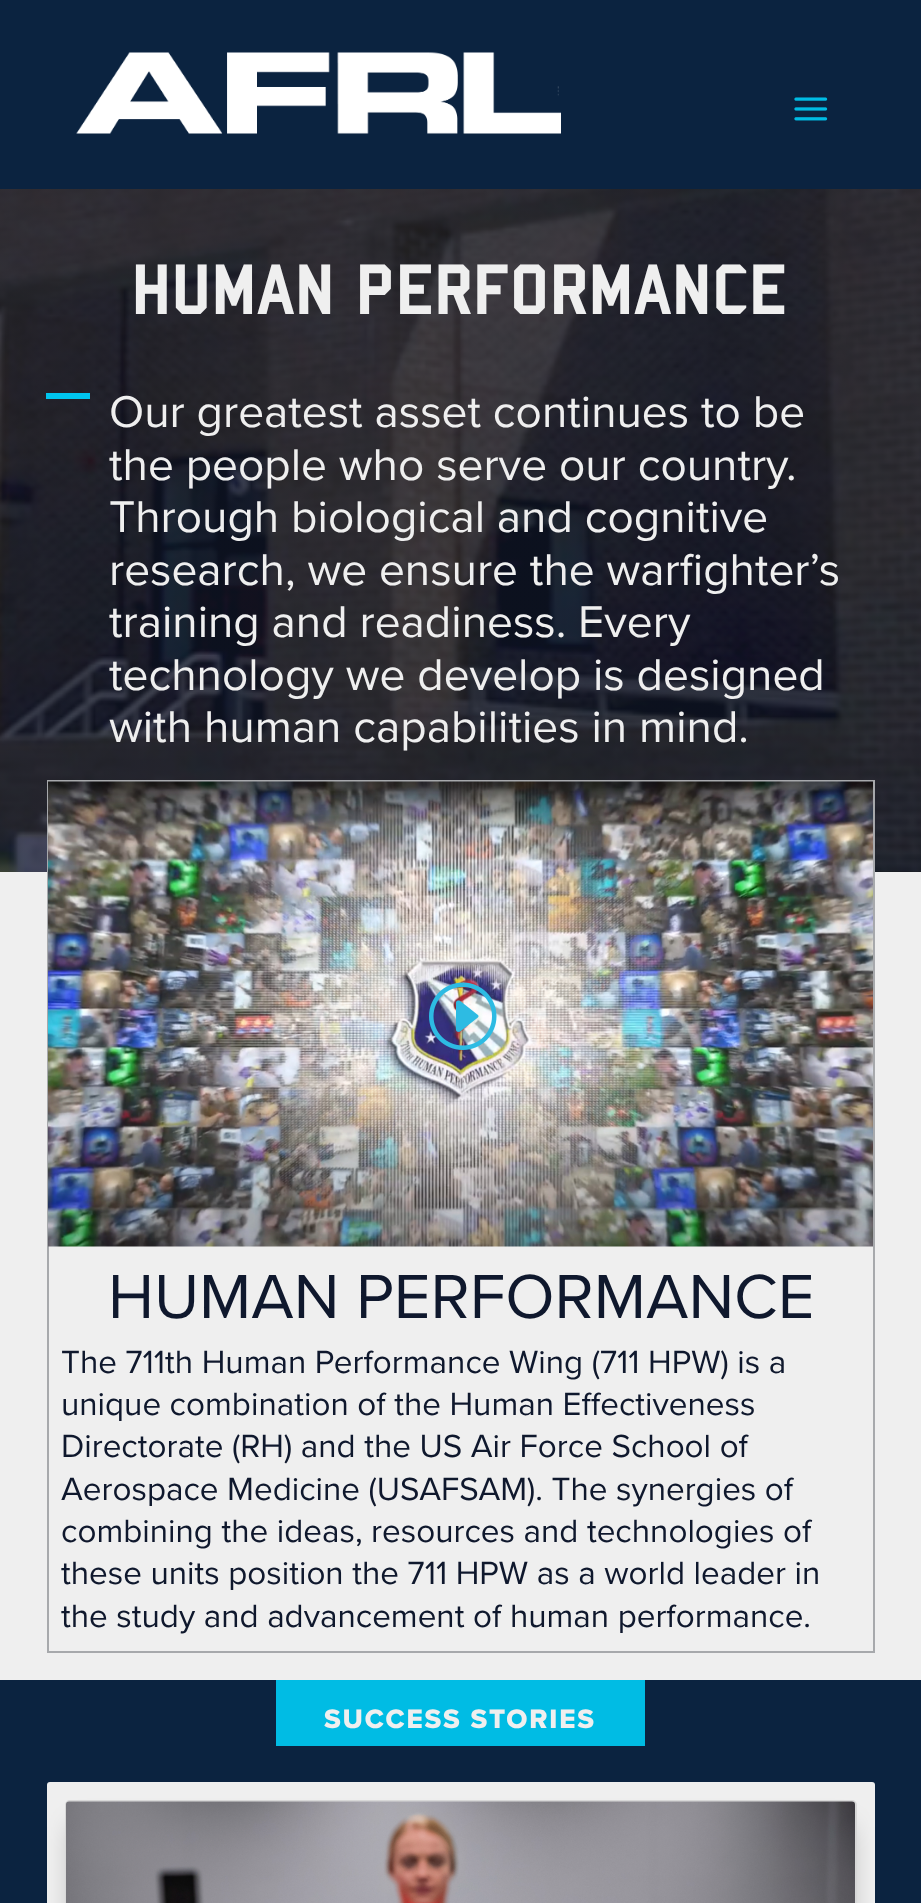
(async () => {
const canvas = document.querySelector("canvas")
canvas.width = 921
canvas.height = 1903
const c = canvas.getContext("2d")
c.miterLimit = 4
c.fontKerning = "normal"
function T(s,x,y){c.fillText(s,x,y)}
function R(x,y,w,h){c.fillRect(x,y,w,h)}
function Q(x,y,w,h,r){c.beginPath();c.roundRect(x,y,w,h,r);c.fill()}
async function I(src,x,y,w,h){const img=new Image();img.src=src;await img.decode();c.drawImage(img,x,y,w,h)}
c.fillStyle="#efefef"
R(0,0,921,1903)
c.fillStyle="#0b2340"
R(0,0,921,189)
await I("1.png",76,52,485,82)
await I("2.png",794,97,34,24)
c.fillStyle="#0b101e"
R(0,871,921,1)
await I("3.png",0,189,921,683)
c.letterSpacing="1.5px"
c.font="77.25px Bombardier"
c.fillStyle="#efefef"
T("HUMAN PERFORMANCE",132,314)
c.fillStyle="#00c5ee"
R(46,393,44,6)
c.letterSpacing="0px"
c.font="46px Proxima Nova"
c.fillStyle="#efefef"
T("Our greatest asset continues to be",109,427)
T("the people who serve our country.",109,480)
T("Through biological and cognitive",109,532)
T("research, we ensure the warfighter’s",109,585)
T("training and readiness. Every",109,637)
T("technology we develop is designed",109,690)
T("with human capabilities in mind.",109,742)
c.strokeStyle="#a7a9ac"
c.lineWidth=2
c.strokeRect(48,781,826,871)
await I("4.png",48,781,825,466)
await I("5.png",429,982,68,68)
c.font="64.5px Proxima Nova"
c.fillStyle="#0f182d"
T("HUMAN PERFORMANCE",108,1318)
c.font="33.2px Proxima Nova"
T("The 711th Human Performance Wing (711 HPW) is a",61,1373)
T("unique combination of the Human Effectiveness",61,1415)
T("Directorate (RH) and the US Air Force School of",61,1457)
T("Aerospace Medicine (USAFSAM). The synergies of",61,1500)
T("combining the ideas, resources and technologies of",61,1542)
T("these units position the 711 HPW as a world leader in",61,1584)
T("the study and advancement of human performance.",61,1627)
c.fillStyle="#0b2340"
R(0,1680,921,223)
c.fillStyle="#00bce4"
R(276,1680,369,66)
c.letterSpacing="1.8px"
c.font="800 27.6px Proxima Nova"
c.fillStyle="#efefef"
T("SUCCESS STORIES",324,1728)
Q(47,1782,828,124,3)
c.fillStyle="#0000004d"
c.filter="blur(13.5px)"
c.beginPath()
c.rect(74,1827,774,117)
c.fill()
c.filter="none"
c.beginPath()
c.roundRect(66,1801,790,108,4)
c.strokeStyle="#d8d8d8"
c.stroke()
await I("6.png",66,1801,789,102)
})()
